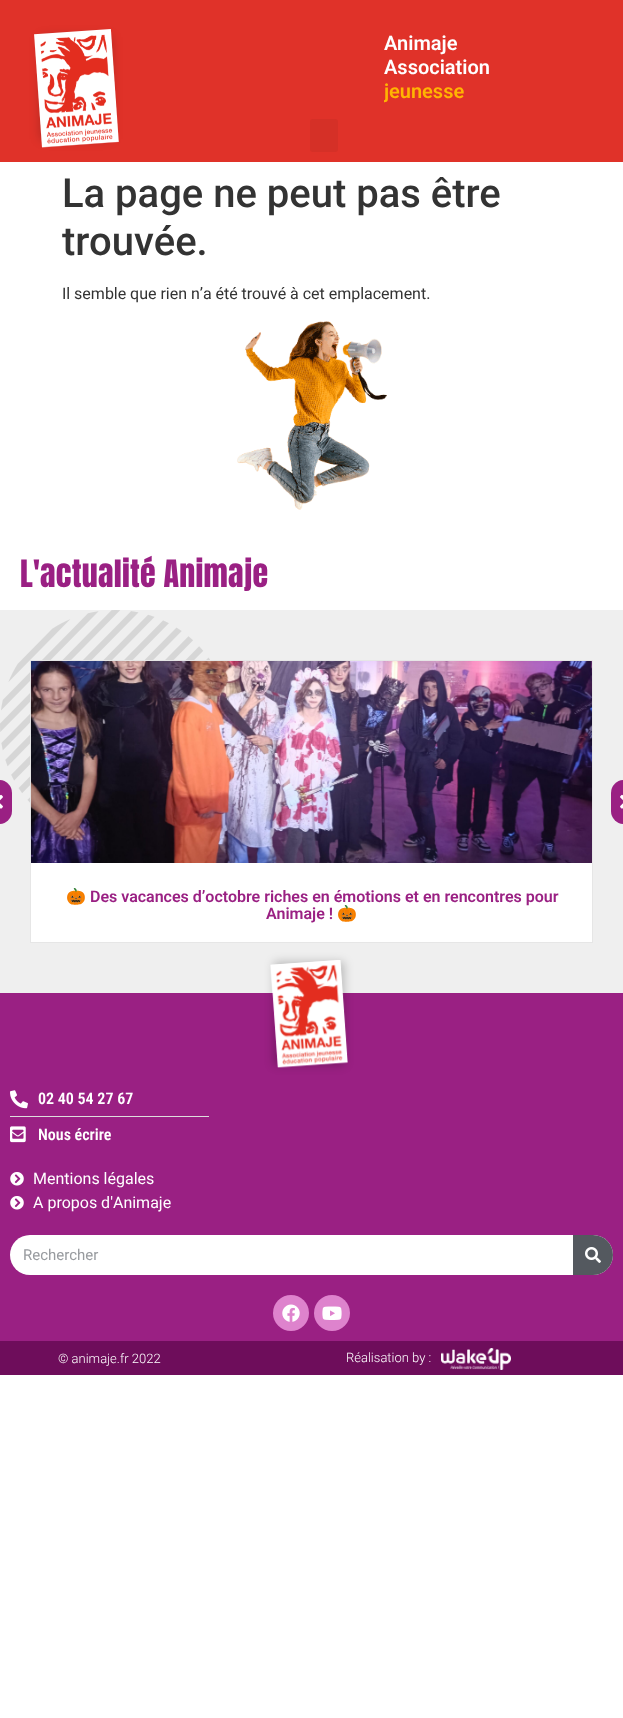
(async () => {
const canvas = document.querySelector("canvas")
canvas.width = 623
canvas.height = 1718
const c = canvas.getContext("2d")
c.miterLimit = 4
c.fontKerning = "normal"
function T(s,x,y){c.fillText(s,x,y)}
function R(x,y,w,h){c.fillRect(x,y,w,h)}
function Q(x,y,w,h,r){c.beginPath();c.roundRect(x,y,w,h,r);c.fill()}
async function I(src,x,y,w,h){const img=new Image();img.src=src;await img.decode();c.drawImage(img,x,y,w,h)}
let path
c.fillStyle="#fff"
R(0,0,623,1718)
c.fillStyle="#e03229"
R(0,0,623,162)
c.fillStyle="#0000003b"
c.filter="blur(5.5px)"
c.beginPath()
c.rect(41,37,70,102)
c.fill()
c.filter="none"
await I("1.png",34,29,85,119)
c.font="600 20px Roboto"
c.fillStyle="#fff"
T("Animaje",384,50)
T("Association",384,74)
c.save()
c.beginPath()
c.rect(384,79,80,24)
c.clip()
c.fillStyle="#ffb402"
T("j",384,98)
c.restore()
c.fillStyle="#ffb402"
T("eunesse",389,98)
c.fillStyle="#d53027"
Q(310,119,28,33,3)
c.font="500 40px Roboto"
c.fillStyle="#333"
T("La page ne peut pas être",62,207)
T("trouvée.",62,255)
c.wordSpacing="-0.1px"
c.font="16px Roboto"
T("Il semble que rien n’a été trouvé à cet emplacement.",62,299)
await I("2.png",237,321,150,189)
c.letterSpacing="0.25px"
c.wordSpacing="0px"
c.font="32px Anton"
c.fillStyle="#9a2083"
T("L'actualité Animaje",20,587)
c.fillStyle="#efefef"
R(0,610,623,383)
await I("3.png",0,610,210,193)
c.fillStyle="#9a2083"
Q(-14,780,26,44,13.5)
await I("4.png",0,794,3,15)
Q(611,780,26,44,13.5)
await I("5.png",620,794,3,15)
c.fillStyle="#fff"
R(31,863,561,79)
c.strokeStyle="#e6e6e6"
c.strokeRect(30.5,660.5,562,282)
await I("6.png",31,661,561,202)
c.letterSpacing="0px"
c.font="bold 16px Noto Color Emoji"
c.fillStyle="#9a2083"
T("🎃",66,902)
c.font="600 16px Roboto"
T("Des vacances d’octobre riches en émotions et en rencontres pour",90,902)
T("Animaje !",266,919)
c.font="bold 16px Noto Color Emoji"
T("🎃",337,919)
R(0,993,623,348)
c.save()
path = new Path2D("M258 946h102v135h-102zm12 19l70-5l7 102.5l-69.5 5z")
c.clip(path,"evenodd")
c.fillStyle="#0000003b"
c.filter="blur(5px)"
c.beginPath()
c.rect(274,962,70,103)
c.fill()
c.filter="none"
c.restore()
await I("7.png",270,960,78,108)
await I("8.png",10,1090,18,19)
c.font="600 16px Roboto Condensed"
c.fillStyle="#fff"
T("02 40 54 27 67",38,1104)
c.fillStyle="#ddd"
R(10,1116,199,1)
await I("9.png",10,1126,16,17)
c.fillStyle="#fff"
T("Nous écrire",38,1140)
await I("10.png",10,1172,14,14)
c.font="16px Roboto"
T("Mentions légales",33,1184)
await I("10.png",10,1196,14,14)
T("A propos d'Animaje",33,1208)
Q(10,1235,603,40,20)
c.font="15px Roboto"
c.fillStyle="#989b9f"
T("Rechercher",23,1260)
c.fillStyle="#54595f"
c.beginPath()
c.roundRect(573,1235,40,40,[0,20,20,0])
c.fill()
await I("11.png",585,1247,16,16)
c.fillStyle="#de83cd"
c.beginPath()
c.arc(291,1313,18,0,7)
c.fill()
await I("12.png",282,1304,18,18)
c.beginPath()
c.arc(332,1313,18,0,7)
c.fill()
await I("13.png",322,1306,20,14)
c.fillStyle="#6e0d5b"
R(0,1341,623,34)
c.font="300 13px Roboto"
c.fillStyle="#fff"
T("© animaje.fr 2022",58,1363)
T("Réalisation by :",346,1362)
await I("14.png",441,1348,70,22)
})()
